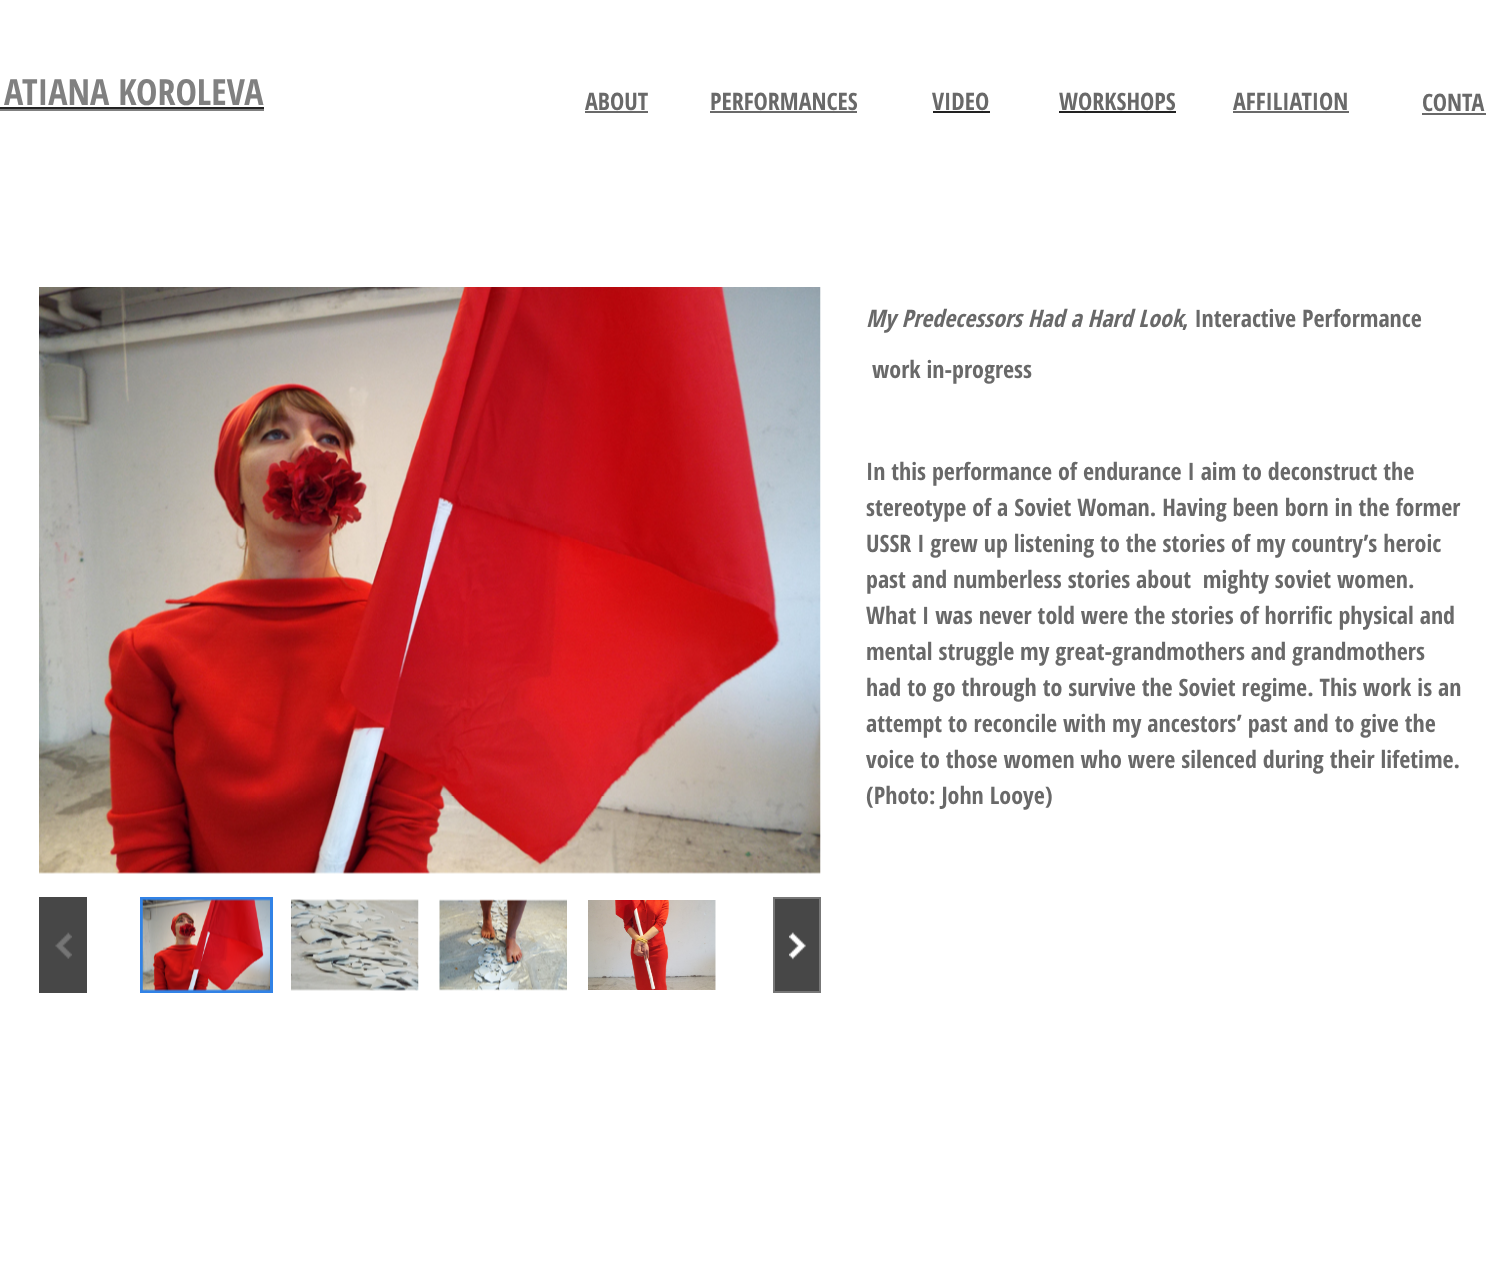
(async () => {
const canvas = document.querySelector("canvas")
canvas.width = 1486
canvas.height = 1279
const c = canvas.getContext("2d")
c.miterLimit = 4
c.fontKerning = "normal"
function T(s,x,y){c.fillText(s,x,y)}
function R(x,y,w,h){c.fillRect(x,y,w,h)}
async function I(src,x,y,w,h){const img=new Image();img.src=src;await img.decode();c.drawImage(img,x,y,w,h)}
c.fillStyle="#fff"
R(0,0,1486,1279)
c.font="bold 36px Open Sans Condensed"
c.fillStyle="#808080"
T("ATIANA KOROLEVA",4,105)
R(0,109,264,2)
c.fillStyle="#222"
R(0,107,264,2)
c.font="bold 24px Open Sans Condensed"
c.fillStyle="#696969"
T("ABOUT",585,110)
R(585,111,63,2)
T("PERFORMANCES",710,110)
R(710,111,147,2)
T("VIDEO",932,110)
c.fillStyle="#222"
R(933,111,57,2)
c.fillStyle="#696969"
T("WORKSHOPS",1059,110)
c.fillStyle="#222"
R(1059,111,117,2)
c.fillStyle="#696969"
T("AFFILIATION",1233,110)
R(1233,111,116,2)
T("CONTA",1422,111)
R(1422,113,64,2)
await I("1.png",39,287,782,587)
c.fillStyle="#474747"
R(39,897,48,96)
await I("2.png",55,932,17,27)
c.fillStyle="#3182e6"
R(140,897,133,96)
await I("3.png",142,899,128,92)
await I("4.png",291,899,128,92)
await I("5.png",439,899,128,92)
await I("6.png",588,900,128,90)
c.fillStyle="#474747"
R(775,899,44,92)
await I("7.png",789,932,17,28)
c.strokeStyle="#777"
c.lineWidth=2
c.strokeRect(774,898,46,94)
c.font="italic bold 24px Open Sans Condensed"
c.fillStyle="#696969"
T("My Predecessors Had a Hard Look",866,327)
c.font="bold 24px Open Sans Condensed"
T(", Interactive Performance",1182,327)
T("work in-progress",872,378)
T("In this performance of endurance I aim to deconstruct the",866,480)
T("stereotype of a Soviet Woman. Having been born in the former",866,516)
T("USSR I grew up listening to the stories of my country’s heroic",866,552)
T("past and numberless stories about  mighty soviet women.",866,588)
T("What I was never told were the stories of horrific physical and",866,624)
T("mental struggle my great-grandmothers and grandmothers",866,660)
T("had to go through to survive the Soviet regime. This work is an",866,696)
T("attempt to reconcile with my ancestors’ past and to give the",866,732)
T("voice to those women who were silenced during their lifetime.",866,768)
T("(Photo: John Looye)",866,804)
})()
